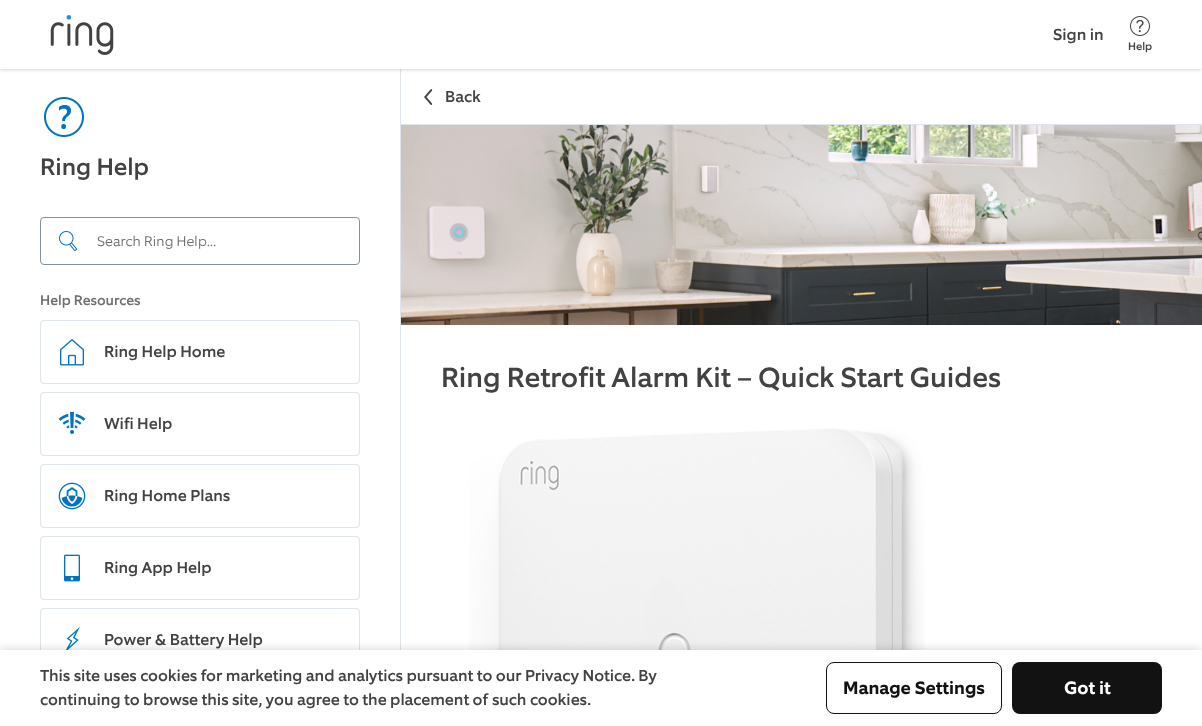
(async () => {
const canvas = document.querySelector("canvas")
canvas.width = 1202
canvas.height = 726
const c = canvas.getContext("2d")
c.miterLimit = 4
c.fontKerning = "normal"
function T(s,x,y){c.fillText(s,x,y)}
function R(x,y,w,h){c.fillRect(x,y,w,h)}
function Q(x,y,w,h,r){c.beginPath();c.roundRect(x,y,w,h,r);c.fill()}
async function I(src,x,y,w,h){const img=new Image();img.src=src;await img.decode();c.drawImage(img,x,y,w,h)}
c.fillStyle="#fff"
R(0,0,1202,726)
c.fillStyle="#dee5ec"
R(400,69,1,581)
c.fillStyle="#00000040"
c.filter="blur(2px)"
c.beginPath()
c.rect(0,1,1202,68)
c.fill()
c.filter="none"
c.fillStyle="#fff"
R(0,0,1202,69)
await I("1.png",50,15,64,40)
c.font="500 16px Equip"
c.fillStyle="#424242"
T("Sign in",1053,40)
await I("2.png",1130,16,20,20)
c.font="500 11px Equip"
T("Help",1128,50)
await I("3.png",44,97,40,40)
c.font="500 24px Equip"
T("Ring Help",40,175)
c.beginPath()
c.roundRect(40.5,217.5,319,47,3.5)
c.strokeStyle="#81919f"
c.stroke()
await I("4.png",59,231,18,20)
c.font="300 14px Equip"
c.fillStyle="#6e6e6e"
T("Search Ring Help...",97,246)
c.font="500 14px Equip"
T("Help Resources",40,305)
c.beginPath()
c.roundRect(40.5,320.5,319,63,3.5)
c.strokeStyle="#dee5ec"
c.stroke()
await I("5.png",60,338,24,28)
c.font="500 16px Equip"
c.fillStyle="#424242"
T("Ring Help Home",104,357)
c.beginPath()
c.roundRect(40.5,392.5,319,63,3.5)
c.stroke()
await I("6.png",58,412,28,22)
T("Wifi Help",104,429)
c.beginPath()
c.roundRect(40.5,464.5,319,63,3.5)
c.stroke()
await I("7.png",58,482,28,28)
T("Ring Home Plans",104,501)
c.beginPath()
c.roundRect(40.5,536.5,319,63,3.5)
c.stroke()
await I("8.png",64,554,16,28)
T("Ring App Help",104,573)
c.beginPath()
c.roundRect(40.5,608.5,319,63,3.5)
c.stroke()
await I("9.png",66,626,14,24)
T("Power & Battery Help",104,645)
c.fillStyle="#dee5ec"
R(401,124,801,1)
await I("10.png",424,89,9,16)
c.fillStyle="#424242"
T("Back",445,102)
await I("11.png",401,125,801,200)
c.font="500 28px Equip"
T("Ring Retrofit Alarm Kit – Quick Start Guides",441,387)
await I("12.png",469,428,456,222)
c.fillStyle="#00000026"
c.filter="blur(4px)"
c.beginPath()
c.rect(0,649,1202,76)
c.fill()
c.filter="none"
c.fillStyle="#fff"
R(0,650,1202,76)
c.font="500 16px Equip"
c.fillStyle="#424242"
T("This site uses cookies for marketing and analytics pursuant to our Privacy Notice. By",40,681)
T("continuing to browse this site, you agree to the placement of such cookies.",40,705)
c.beginPath()
c.roundRect(826.5,662.5,175,51,7.5)
c.strokeStyle="#121212"
c.stroke()
c.font="bold 18px Equip"
c.fillStyle="#121212"
T("Manage Settings",843,694)
Q(1012,662,150,52,8)
c.fillStyle="#fff"
T("Got it",1064,694)
})()
